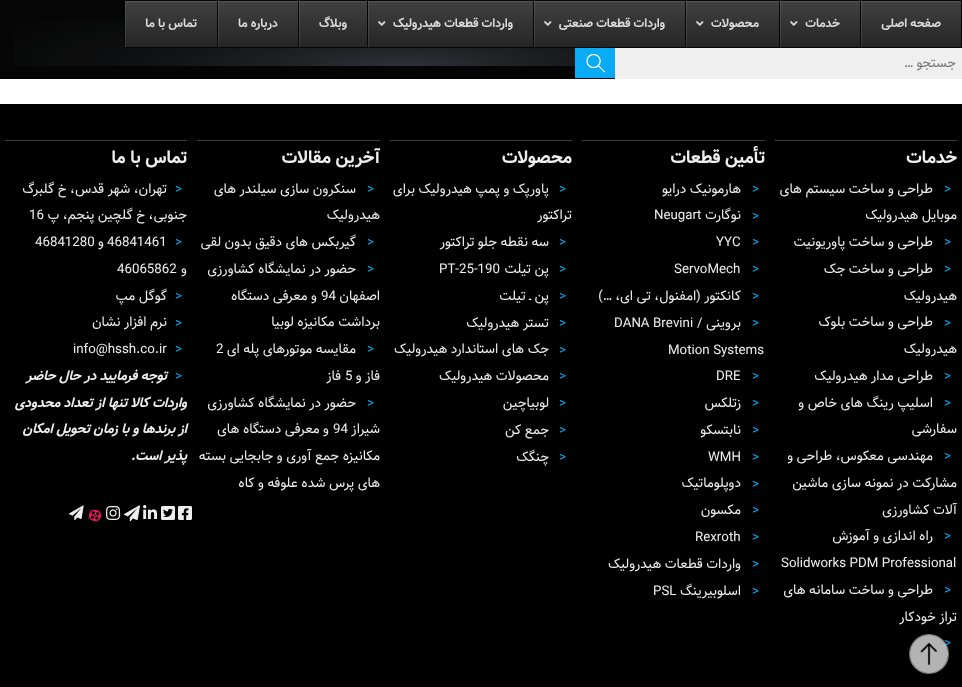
(async () => {
const canvas = document.querySelector("canvas")
canvas.width = 962
canvas.height = 687
const c = canvas.getContext("2d")
c.miterLimit = 4
c.fontKerning = "normal"
function T(s,x,y){c.fillText(s,x,y)}
function R(x,y,w,h){c.fillRect(x,y,w,h)}
async function I(src,x,y,w,h){const img=new Image();img.src=src;await img.decode();c.drawImage(img,x,y,w,h)}
let gradient, path
c.fillStyle="#fff"
R(0,0,962,687)
c.fillStyle="#050505"
R(0,0,615,79)
await I("1.png",13,19,562,47)
gradient = c.createLinearGradient(543,1,543,47)
gradient.addColorStop(0,"#414141")
gradient.addColorStop(1,"#252525")
c.fillStyle = gradient
R(125,1,836,46)
c.save()
c.beginPath()
c.rect(125,1,836,46)
c.clip()
c.fillStyle="#ffffff1a"
path = new Path2D("M26-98h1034v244h-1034zm100 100h836v46h-836z")
c.fill(path,"evenodd")
c.restore()
c.strokeStyle="#050505"
c.strokeRect(124.5,.5,837,47)
c.fillStyle="#ffffff1a"
R(861,1,1,46)
c.fillStyle="#050505"
R(860,1,1,46)
c.direction="rtl"
c.font="bold 12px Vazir"
c.fillStyle="#dadada"
T("صفحه اصلی",941,27)
c.fillStyle="#ffffff1a"
R(780,1,1,46)
c.fillStyle="#050505"
R(779,1,1,46)
c.fillStyle="#dadada"
T("خدمات",840,27)
await I("2.png",790,21,8,5)
c.fillStyle="#ffffff1a"
R(686,1,1,46)
c.fillStyle="#050505"
R(685,1,1,46)
c.fillStyle="#dadada"
T("محصولات",759,27)
await I("2.png",696,21,8,5)
c.fillStyle="#ffffff1a"
R(534,1,1,46)
c.fillStyle="#050505"
R(533,1,1,46)
c.fillStyle="#dadada"
T("واردات قطعات صنعتی",665,27)
await I("2.png",544,21,8,5)
c.fillStyle="#ffffff1a"
R(368,1,1,46)
c.fillStyle="#050505"
R(367,1,1,46)
c.fillStyle="#dadada"
T("واردات قطعات هیدرولیک",513,27)
await I("2.png",378,21,8,5)
c.fillStyle="#ffffff1a"
R(299,1,1,46)
c.fillStyle="#050505"
R(298,1,1,46)
c.fillStyle="#dadada"
T("وبلاگ",347,27)
c.fillStyle="#ffffff1a"
R(218,1,1,46)
c.fillStyle="#050505"
R(217,1,1,46)
c.fillStyle="#dadada"
T("درباره ما",278,27)
T("تماس با ما",197,27)
c.fillStyle="#efefef"
R(615,48,347,31)
c.font="13.3px Vazir"
c.fillStyle="#787878"
T("جستجو …",956,67)
c.fillStyle="#08abf4"
R(575,48,40,30)
await I("3.png",586,54,19,19)
c.fillStyle="#000"
R(0,104,962,583)
c.fillStyle="#404040"
R(775,140,182,1)
c.font="bold 17.5px Vazir"
c.fillStyle="#eee"
T("خدمات",957,163)
c.letterSpacing="-1px"
c.direction="ltr"
c.font="13.3px Vazir"
c.fillStyle="#03a9f4"
T(">",944,193)
c.letterSpacing="0px"
c.direction="rtl"
c.fillStyle="#eee"
T("طراحی و ساخت سیستم های",933,193)
T("موبایل هیدرولیک",957,219)
c.letterSpacing="-1px"
c.direction="ltr"
c.fillStyle="#03a9f4"
T(">",944,246)
c.letterSpacing="0px"
c.direction="rtl"
c.fillStyle="#eee"
T("طراحی و ساخت پاوریونیت",933,246)
c.letterSpacing="-1px"
c.direction="ltr"
c.fillStyle="#03a9f4"
T(">",944,273)
c.letterSpacing="0px"
c.direction="rtl"
c.fillStyle="#eee"
T("طراحی و ساخت جک",933,273)
T("هیدرولیک",957,300)
c.letterSpacing="-1px"
c.direction="ltr"
c.fillStyle="#03a9f4"
T(">",944,327)
c.letterSpacing="0px"
c.direction="rtl"
c.fillStyle="#eee"
T("طراحی و ساخت بلوک",933,326)
T("هیدرولیک",957,353)
c.letterSpacing="-1px"
c.direction="ltr"
c.fillStyle="#03a9f4"
T(">",944,380)
c.letterSpacing="0px"
c.direction="rtl"
c.fillStyle="#eee"
T("طراحی مدار هیدرولیک",933,380)
c.letterSpacing="-1px"
c.direction="ltr"
c.fillStyle="#03a9f4"
T(">",944,407)
c.letterSpacing="0px"
c.direction="rtl"
c.fillStyle="#eee"
T("اسلیپ رینگ های خاص و",933,407)
T("سفارشی",957,433)
c.letterSpacing="-1px"
c.direction="ltr"
c.fillStyle="#03a9f4"
T(">",944,460)
c.letterSpacing="0px"
c.direction="rtl"
c.fillStyle="#eee"
T("مهندسی معکوس، طراحی و",933,460)
T("مشارکت در نمونه سازی ماشین",957,487)
T("آلات کشاورزی",957,514)
c.letterSpacing="-1px"
c.direction="ltr"
c.fillStyle="#03a9f4"
T(">",944,540)
c.letterSpacing="0px"
c.direction="rtl"
c.fillStyle="#eee"
T("راه اندازی و آموزش",933,540)
c.direction="ltr"
T("Solidworks PDM Professional",781,567)
c.letterSpacing="-1px"
c.fillStyle="#03a9f4"
T(">",944,594)
c.letterSpacing="0px"
c.direction="rtl"
c.fillStyle="#eee"
T("طراحی و ساخت سامانه های",933,594)
T("تراز خودکار",957,621)
c.letterSpacing="-1px"
c.direction="ltr"
c.fillStyle="#03a9f4"
T(">",944,647)
c.fillStyle="#404040"
R(582,140,183,1)
c.letterSpacing="0px"
c.direction="rtl"
c.font="bold 17.5px Vazir"
c.fillStyle="#eee"
T("تأمین قطعات",765,163)
c.letterSpacing="-1px"
c.direction="ltr"
c.font="13.3px Vazir"
c.fillStyle="#03a9f4"
T(">",752,193)
c.letterSpacing="0px"
c.direction="rtl"
c.fillStyle="#eee"
T("هارمونیک درایو",741,193)
c.letterSpacing="-1px"
c.direction="ltr"
c.fillStyle="#03a9f4"
T(">",752,220)
c.letterSpacing="0px"
c.direction="rtl"
c.fillStyle="#eee"
T("نوگارت",741,219)
c.direction="ltr"
T("Neugart",654,219)
c.letterSpacing="-1px"
c.fillStyle="#03a9f4"
T(">",752,246)
c.letterSpacing="0px"
c.fillStyle="#eee"
T("YYC",716,246)
c.letterSpacing="-1px"
c.fillStyle="#03a9f4"
T(">",752,273)
c.letterSpacing="0px"
c.fillStyle="#eee"
T("ServoMech",674,273)
c.letterSpacing="-1px"
c.fillStyle="#03a9f4"
T(">",752,300)
c.letterSpacing="0px"
c.direction="rtl"
c.fillStyle="#eee"
T("کانکتور (امفنول، تی ای، …)",741,300)
c.letterSpacing="-1px"
c.direction="ltr"
c.fillStyle="#03a9f4"
T(">",752,327)
c.letterSpacing="0px"
c.direction="rtl"
c.fillStyle="#eee"
T("بروینی /",741,327)
c.direction="ltr"
T("DANA Brevini",614,327)
T("Motion Systems",668,354)
c.letterSpacing="-1px"
c.fillStyle="#03a9f4"
T(">",752,380)
c.letterSpacing="0px"
c.fillStyle="#eee"
T("DRE",716,380)
c.letterSpacing="-1px"
c.fillStyle="#03a9f4"
T(">",752,407)
c.letterSpacing="0px"
c.direction="rtl"
c.fillStyle="#eee"
T("زتلکس",741,407)
c.letterSpacing="-1px"
c.direction="ltr"
c.fillStyle="#03a9f4"
T(">",752,434)
c.letterSpacing="0px"
c.direction="rtl"
c.fillStyle="#eee"
T("نابتسکو",741,434)
c.letterSpacing="-1px"
c.direction="ltr"
c.fillStyle="#03a9f4"
T(">",752,461)
c.letterSpacing="0px"
c.fillStyle="#eee"
T("WMH",708,461)
c.letterSpacing="-1px"
c.fillStyle="#03a9f4"
T(">",752,488)
c.letterSpacing="0px"
c.direction="rtl"
c.fillStyle="#eee"
T("دوپلوماتیک",741,487)
c.letterSpacing="-1px"
c.direction="ltr"
c.fillStyle="#03a9f4"
T(">",752,514)
c.letterSpacing="0px"
c.direction="rtl"
c.fillStyle="#eee"
T("مکسون",741,514)
c.letterSpacing="-1px"
c.direction="ltr"
c.fillStyle="#03a9f4"
T(">",752,541)
c.letterSpacing="0px"
c.fillStyle="#eee"
T("Rexroth",695,541)
c.letterSpacing="-1px"
c.fillStyle="#03a9f4"
T(">",752,568)
c.letterSpacing="0px"
c.direction="rtl"
c.fillStyle="#eee"
T("واردات قطعات هیدرولیک",741,568)
c.letterSpacing="-1px"
c.direction="ltr"
c.fillStyle="#03a9f4"
T(">",752,595)
c.letterSpacing="0px"
c.direction="rtl"
c.fillStyle="#eee"
T("اسلوبیرینگ",741,595)
c.direction="ltr"
T("PSL",653,595)
c.fillStyle="#404040"
R(390,140,182,1)
c.direction="rtl"
c.font="bold 17.5px Vazir"
c.fillStyle="#eee"
T("محصولات",572,163)
c.letterSpacing="-1px"
c.direction="ltr"
c.font="13.3px Vazir"
c.fillStyle="#03a9f4"
T(">",559,193)
c.letterSpacing="0px"
c.direction="rtl"
c.fillStyle="#eee"
T("پاورپک و پمپ هیدرولیک برای",549,193)
T("تراکتور",572,219)
c.letterSpacing="-1px"
c.direction="ltr"
c.fillStyle="#03a9f4"
T(">",559,246)
c.letterSpacing="0px"
c.direction="rtl"
c.fillStyle="#eee"
T("سه نقطه جلو تراکتور",549,246)
c.letterSpacing="-1px"
c.direction="ltr"
c.fillStyle="#03a9f4"
T(">",559,273)
c.letterSpacing="0px"
c.direction="rtl"
c.fillStyle="#eee"
T("پن تیلت",549,273)
c.direction="ltr"
T("PT-25-190",439,273)
c.letterSpacing="-1px"
c.fillStyle="#03a9f4"
T(">",559,300)
c.letterSpacing="0px"
c.direction="rtl"
c.fillStyle="#eee"
T("پن ـ تیلت",549,300)
c.letterSpacing="-1px"
c.direction="ltr"
c.fillStyle="#03a9f4"
T(">",559,327)
c.letterSpacing="0px"
c.direction="rtl"
c.fillStyle="#eee"
T("تستر هیدرولیک",549,327)
c.letterSpacing="-1px"
c.direction="ltr"
c.fillStyle="#03a9f4"
T(">",559,354)
c.letterSpacing="0px"
c.direction="rtl"
c.fillStyle="#eee"
T("جک های استاندارد هیدرولیک",549,353)
c.letterSpacing="-1px"
c.direction="ltr"
c.fillStyle="#03a9f4"
T(">",559,380)
c.letterSpacing="0px"
c.direction="rtl"
c.fillStyle="#eee"
T("محصولات هیدرولیک",549,380)
c.letterSpacing="-1px"
c.direction="ltr"
c.fillStyle="#03a9f4"
T(">",559,407)
c.letterSpacing="0px"
c.direction="rtl"
c.fillStyle="#eee"
T("لوبیاچین",549,407)
c.letterSpacing="-1px"
c.direction="ltr"
c.fillStyle="#03a9f4"
T(">",559,434)
c.letterSpacing="0px"
c.direction="rtl"
c.fillStyle="#eee"
T("جمع کن",549,434)
c.letterSpacing="-1px"
c.direction="ltr"
c.fillStyle="#03a9f4"
T(">",559,461)
c.letterSpacing="0px"
c.direction="rtl"
c.fillStyle="#eee"
T("چنگک",549,461)
c.fillStyle="#404040"
R(197,140,183,1)
c.font="bold 17.5px Vazir"
c.fillStyle="#eee"
T("آخرین مقالات",380,163)
c.letterSpacing="-1px"
c.direction="ltr"
c.font="13.3px Vazir"
c.fillStyle="#03a9f4"
T(">",367,193)
c.letterSpacing="0px"
c.direction="rtl"
c.fillStyle="#eee"
T("سنکرون سازی سیلندر های",356,193)
T("هیدرولیک",380,219)
c.letterSpacing="-1px"
c.direction="ltr"
c.fillStyle="#03a9f4"
T(">",367,246)
c.letterSpacing="0px"
c.direction="rtl"
c.fillStyle="#eee"
T("گیربکس های دقیق بدون لقی",356,246)
c.letterSpacing="-1px"
c.direction="ltr"
c.fillStyle="#03a9f4"
T(">",367,273)
c.letterSpacing="0px"
c.direction="rtl"
c.fillStyle="#eee"
T("حضور در نمایشگاه کشاورزی",356,273)
T("اصفهان",380,300)
c.direction="ltr"
T("94",321,300)
c.direction="rtl"
T("و معرفی دستگاه",317,300)
T("برداشت مکانیزه لوبیا",380,326)
c.letterSpacing="-1px"
c.direction="ltr"
c.fillStyle="#03a9f4"
T(">",367,353)
c.letterSpacing="0px"
c.direction="rtl"
c.fillStyle="#eee"
T("مقایسه موتورهای پله ای",356,353)
c.direction="ltr"
T("2",216,353)
c.direction="rtl"
T("فاز و",380,380)
c.direction="ltr"
T("5",345,380)
c.direction="rtl"
T("فاز",341,380)
c.letterSpacing="-1px"
c.direction="ltr"
c.fillStyle="#03a9f4"
T(">",367,407)
c.letterSpacing="0px"
c.direction="rtl"
c.fillStyle="#eee"
T("حضور در نمایشگاه کشاورزی",356,407)
T("شیراز",380,433)
c.direction="ltr"
T("94",333,433)
c.direction="rtl"
T("و معرفی دستگاه های",329,433)
T("مکانیزه جمع آوری و جابجایی بسته",380,460)
T("های پرس شده علوفه و کاه",380,487)
c.fillStyle="#404040"
R(5,140,182,1)
c.font="bold 17.5px Vazir"
c.fillStyle="#eee"
T("تماس با ما",187,163)
c.letterSpacing="-1px"
c.direction="ltr"
c.font="13.3px Vazir"
c.fillStyle="#03a9f4"
T(">",175,193)
c.letterSpacing="0px"
c.direction="rtl"
c.fillStyle="#eee"
T("تهران، شهر قدس، خ گلبرگ",167,193)
T("جنوبی، خ گلچین پنجم، پ",187,219)
c.direction="ltr"
T("16",29,219)
c.letterSpacing="-1px"
c.fillStyle="#03a9f4"
T(">",175,246)
c.letterSpacing="0px"
c.fillStyle="#eee"
T("46841461",107,246)
c.direction="rtl"
T("و",104,246)
c.direction="ltr"
T("46841280",35,246)
c.direction="rtl"
T("و",187,273)
c.direction="ltr"
T("46065862",117,273)
c.letterSpacing="-1px"
c.fillStyle="#03a9f4"
T(">",175,300)
c.letterSpacing="0px"
c.direction="rtl"
c.fillStyle="#eee"
T("گوگل مپ",167,300)
c.letterSpacing="-1px"
c.direction="ltr"
c.fillStyle="#03a9f4"
T(">",175,327)
c.letterSpacing="0px"
c.direction="rtl"
c.fillStyle="#eee"
T("نرم افزار نشان",167,326)
c.letterSpacing="-1px"
c.direction="ltr"
c.fillStyle="#03a9f4"
T(">",175,353)
c.letterSpacing="0px"
c.fillStyle="#eee"
T("info@hssh.co.ir",73,353)
c.letterSpacing="-1px"
c.fillStyle="#03a9f4"
T(">",175,380)
c.letterSpacing="0px"
c.direction="rtl"
c.font="italic bold 13.3px Vazir"
c.fillStyle="#eee"
T("توجه فرمایید در حال حاضر",167,380)
T("واردات کالا تنها از تعداد محدودی",187,407)
T("از برندها و با زمان تحویل امکان",187,433)
T("پذیر است.",187,460)
await I("4.png",178,506,14,14)
await I("5.png",161,506,14,14)
await I("6.png",143,505,14,14)
await I("7.png",124,505,16,17)
await I("8.png",106,506,15,14)
await I("9.png",88,509,14,13)
await I("10.png",69,505,15,16)
await I("11.png",909,634,40,40)
})()
